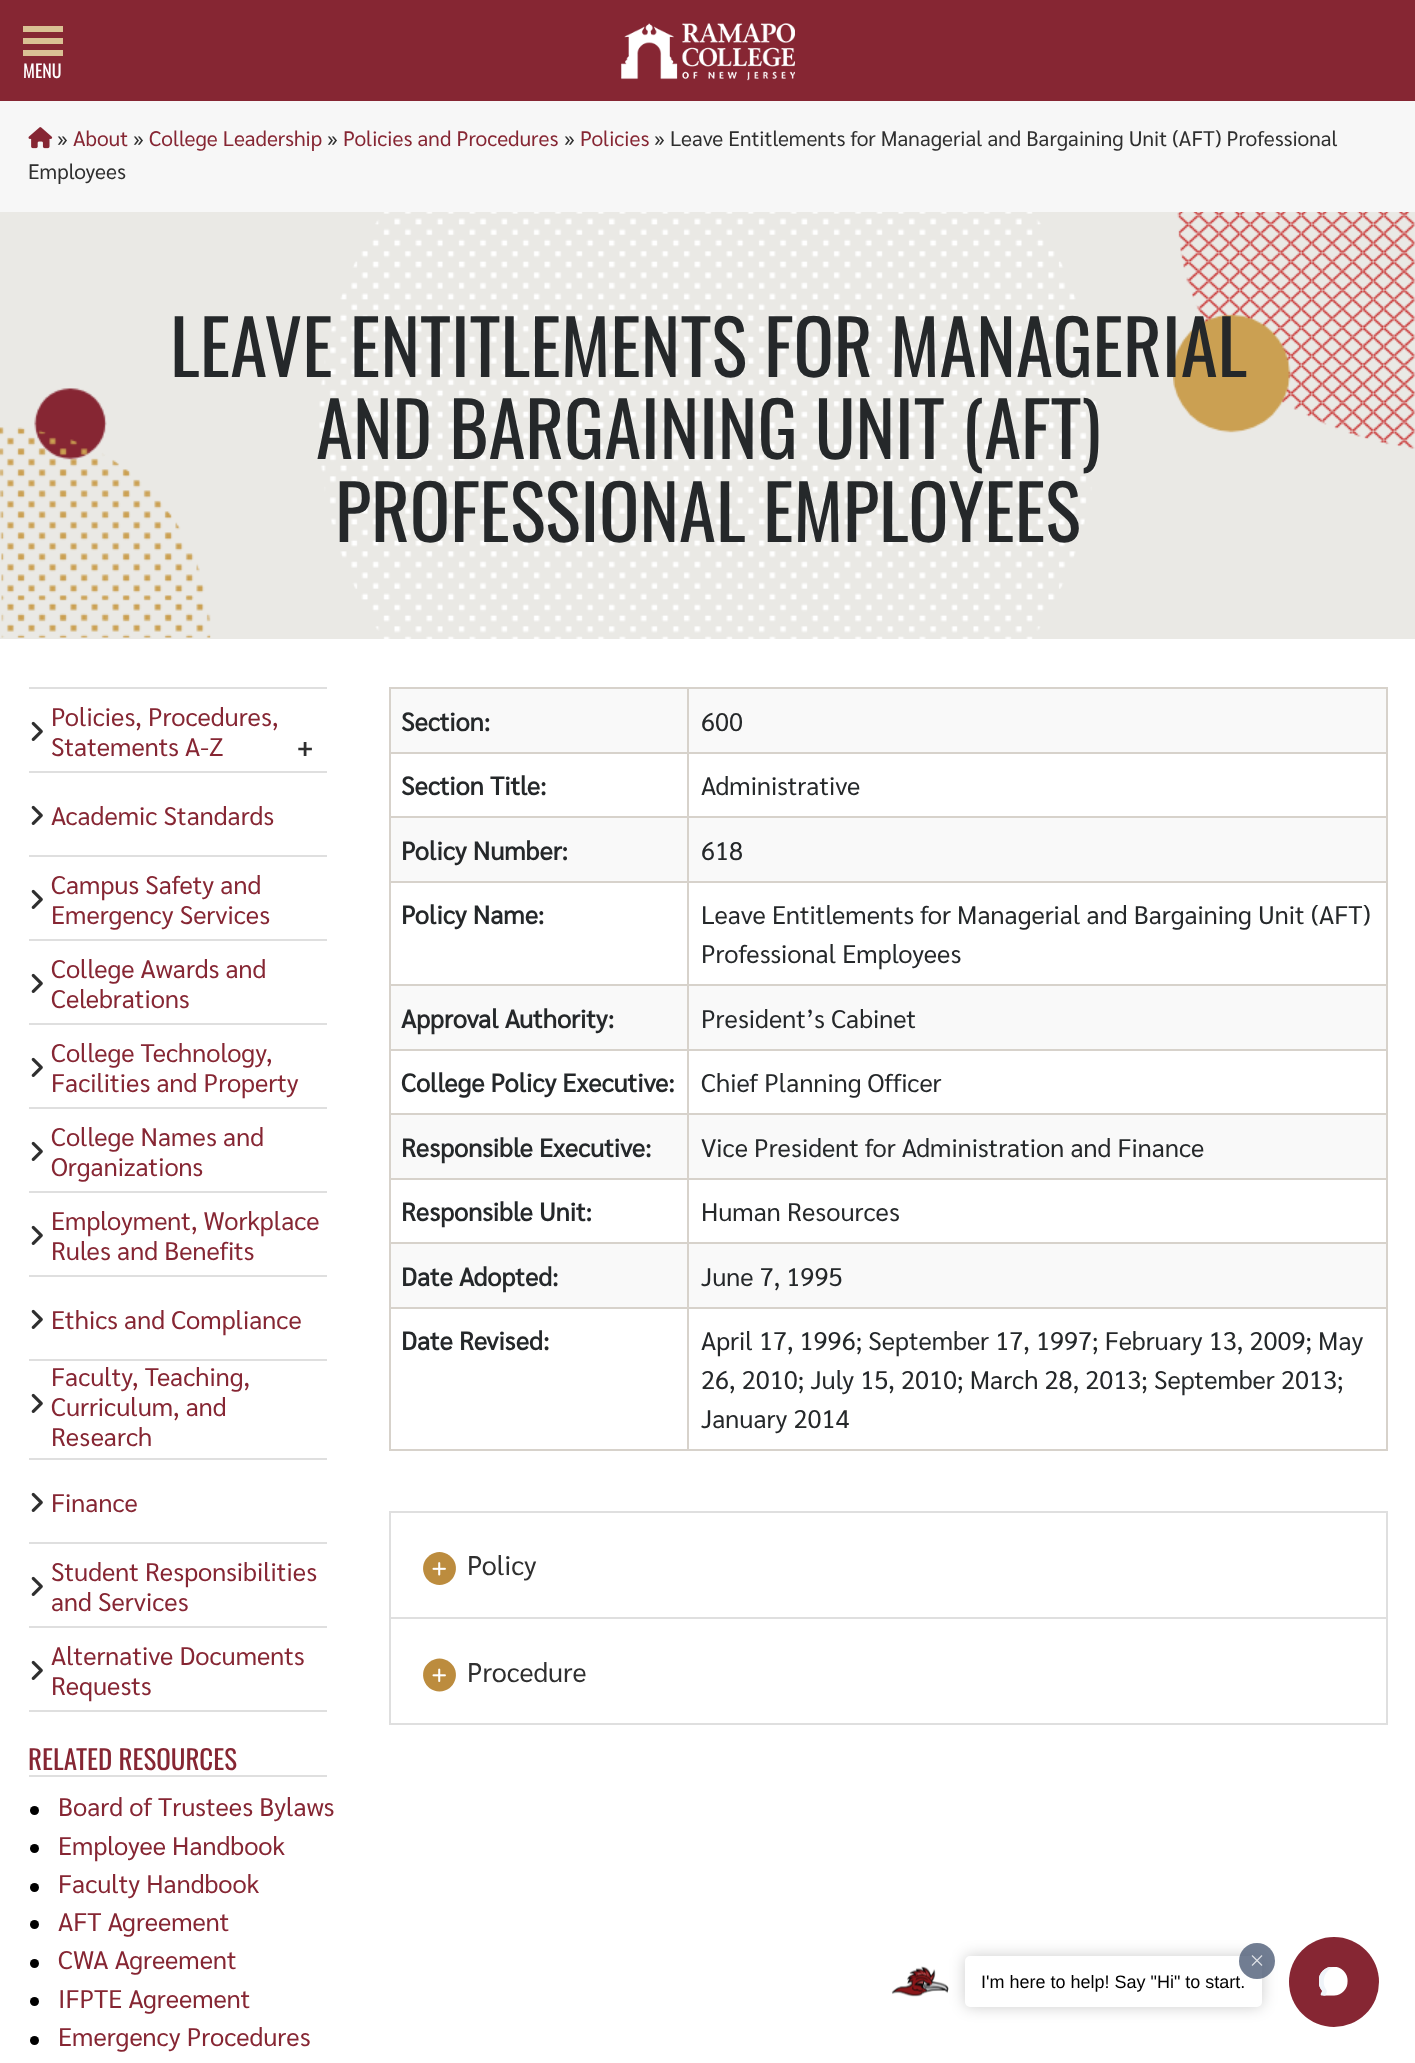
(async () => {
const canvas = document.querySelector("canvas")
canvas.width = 1415
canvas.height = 2063
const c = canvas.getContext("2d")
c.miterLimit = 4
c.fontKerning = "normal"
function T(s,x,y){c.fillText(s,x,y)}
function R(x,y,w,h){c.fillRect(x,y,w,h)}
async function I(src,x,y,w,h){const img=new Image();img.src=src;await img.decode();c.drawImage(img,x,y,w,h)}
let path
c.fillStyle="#fff"
R(0,0,1415,2063)
c.fillStyle="#862633"
R(0,0,1415,101)
c.fillStyle="#dac094"
R(23,26,40,6)
R(23,38,40,6)
R(23,50,40,6)
c.font="18px Oswald"
c.fillStyle="#fff"
T("MENU",23,78)
await I("1.png",621,23,174,58)
c.fillStyle="#f7f7f7"
R(0,101,1415,111)
await I("2.png",28,127,25,22)
c.font="21px Sarabun"
c.fillStyle="#2f2f2f"
T("»",57,146)
c.fillStyle="#862633"
T("About",73,146)
c.fillStyle="#2f2f2f"
T("»",133,146)
c.fillStyle="#862633"
T("College Leadership",149,146)
c.fillStyle="#2f2f2f"
T("»",327,146)
c.fillStyle="#862633"
T("Policies and Procedures",343,146)
c.fillStyle="#2f2f2f"
T("»",564,146)
c.fillStyle="#862633"
T("Policies",580,146)
c.fillStyle="#2f2f2f"
T("» Leave Entitlements for Managerial and Bargaining Unit (AFT) Professional",654,146)
T("Employees",28,179)
c.fillStyle="#eae9e5"
R(0,212,1415,427)
await I("3.png",0,212,1415,427)
c.font="75px Oswald"
c.fillStyle="#25282a"
T("LEAVE ENTITLEMENTS FOR MANAGERIAL",170,377)
T("AND BARGAINING UNIT (AFT)",316,459)
T("PROFESSIONAL EMPLOYEES",335,542)
c.fillStyle="#dfdfdf"
R(29,687,298,2)
R(29,771,298,2)
await I("4.png",31,721,12,20)
c.font="25.5px Sarabun"
c.fillStyle="#862633"
T("Policies, Procedures,",51,726)
T("Statements A-Z",51,756)
c.font="bold 25.5px Sarabun"
c.fillStyle="#2f2f2f"
T("+",297,756)
c.fillStyle="#dfdfdf"
R(29,855,298,2)
await I("4.png",31,805,12,20)
c.font="25.5px Sarabun"
c.fillStyle="#862633"
T("Academic Standards",51,825)
c.fillStyle="#dfdfdf"
R(29,939,298,2)
await I("4.png",31,889,12,20)
c.fillStyle="#862633"
T("Campus Safety and",51,894)
T("Emergency Services",51,924)
c.fillStyle="#dfdfdf"
R(29,1023,298,2)
await I("4.png",31,973,12,20)
c.fillStyle="#862633"
T("College Awards and",51,978)
T("Celebrations",51,1008)
c.fillStyle="#dfdfdf"
R(29,1107,298,2)
await I("4.png",31,1057,12,20)
c.fillStyle="#862633"
T("College Technology,",51,1062)
T("Facilities and Property",51,1092)
c.fillStyle="#dfdfdf"
R(29,1191,298,2)
await I("4.png",31,1141,12,20)
c.fillStyle="#862633"
T("College Names and",51,1146)
T("Organizations",51,1176)
c.fillStyle="#dfdfdf"
R(29,1275,298,2)
await I("4.png",31,1225,12,20)
c.fillStyle="#862633"
T("Employment, Workplace",51,1230)
T("Rules and Benefits",51,1260)
c.fillStyle="#dfdfdf"
R(29,1359,298,2)
await I("4.png",31,1309,12,20)
c.fillStyle="#862633"
T("Ethics and Compliance",51,1329)
c.fillStyle="#dfdfdf"
R(29,1458,298,2)
c.fillStyle="#862633"
T("Faculty, Teaching,",51,1386)
await I("4.png",31,1393,12,20)
T("Curriculum, and",51,1416)
T("Research",51,1446)
c.fillStyle="#dfdfdf"
R(29,1542,298,2)
await I("4.png",31,1492,12,20)
c.fillStyle="#862633"
T("Finance",51,1512)
c.fillStyle="#dfdfdf"
R(29,1626,298,2)
await I("4.png",31,1576,12,20)
c.fillStyle="#862633"
T("Student Responsibilities",51,1581)
T("and Services",51,1611)
c.fillStyle="#dfdfdf"
R(29,1710,298,2)
c.fillStyle="#862633"
T("Alternative Documents",51,1665)
await I("4.png",31,1660,12,20)
T("Requests",51,1695)
c.fillStyle="#dfdfdf"
R(29,1775,298,2)
c.font="27px Oswald"
c.fillStyle="#862633"
T("RELATED RESOURCES",28,1770)
c.fillStyle="#000"
c.beginPath()
c.arc(34.5,1810.5,4.5,0,7)
c.fill()
c.font="25.5px Sarabun"
c.fillStyle="#862633"
T("Board of Trustees Bylaws",58,1816)
c.fillStyle="#000"
c.beginPath()
c.arc(34.5,1848.5,4.5,0,7)
c.fill()
c.fillStyle="#862633"
T("Employee Handbook",58,1855)
c.fillStyle="#000"
c.beginPath()
c.arc(34.5,1887.5,4.5,0,7)
c.fill()
c.fillStyle="#862633"
T("Faculty Handbook",58,1893)
c.fillStyle="#000"
c.beginPath()
c.arc(34.5,1924.5,4.5,0,7)
c.fill()
c.fillStyle="#862633"
T("AFT Agreement",58,1931)
c.fillStyle="#000"
c.beginPath()
c.arc(34.5,1963.5,4.5,0,7)
c.fill()
c.fillStyle="#862633"
T("CWA Agreement",58,1969)
c.fillStyle="#000"
c.beginPath()
c.arc(34.5,2001.5,4.5,0,7)
c.fill()
c.fillStyle="#862633"
T("IFPTE Agreement",58,2008)
c.fillStyle="#000"
c.beginPath()
c.arc(34.5,2040.5,4.5,0,7)
c.fill()
c.fillStyle="#862633"
T("Emergency Procedures",58,2046)
c.fillStyle="#f9f9f9"
R(391,689,995,63)
c.fillStyle="#d7d2cb"
R(687,687,701,2)
R(687,752,701,2)
R(687,816,701,2)
c.fillStyle="#f9f9f9"
R(391,818,995,63)
c.fillStyle="#d7d2cb"
R(687,881,701,2)
R(687,984,701,2)
c.fillStyle="#f9f9f9"
R(391,986,995,63)
c.fillStyle="#d7d2cb"
R(687,1049,701,2)
R(687,1113,701,2)
c.fillStyle="#f9f9f9"
R(391,1115,995,63)
c.fillStyle="#d7d2cb"
R(687,1178,701,2)
R(687,1242,701,2)
c.fillStyle="#f9f9f9"
R(391,1244,995,63)
c.fillStyle="#d7d2cb"
R(687,1307,701,2)
R(1386,1307,2,144)
R(687,1449,701,2)
R(687,1307,2,144)
R(389,1307,300,2)
R(687,1242,2,66)
R(389,1242,300,2)
R(687,1178,2,66)
R(389,1178,300,2)
R(687,1113,2,66)
R(389,1113,300,2)
R(687,1049,2,66)
R(389,1049,300,2)
R(687,984,2,66)
R(389,984,300,2)
R(687,881,2,105)
R(389,881,300,2)
R(687,816,2,66)
R(389,816,300,2)
R(687,752,2,66)
R(389,752,300,2)
R(687,687,2,66)
R(389,687,300,2)
R(389,1449,300,2)
R(389,1307,2,144)
R(389,1242,2,66)
R(389,1178,2,66)
R(389,1113,2,66)
R(389,1049,2,66)
R(389,984,2,66)
R(389,881,2,105)
R(389,816,2,66)
R(389,752,2,66)
R(389,687,2,66)
c.font="bold 25.5px Sarabun"
c.fillStyle="#25282a"
T("Section:",401,731)
c.fillStyle="#d7d2cb"
R(1386,1242,2,66)
R(1386,1178,2,66)
R(1386,1113,2,66)
R(1386,1049,2,66)
R(1386,984,2,66)
R(1386,881,2,105)
R(1386,816,2,66)
R(1386,752,2,66)
R(1386,687,2,66)
c.font="25.5px Sarabun"
c.fillStyle="#25282a"
T("600",701,731)
c.font="bold 25.5px Sarabun"
T("Section Title:",401,795)
c.font="25.5px Sarabun"
T("Administrative",701,795)
c.font="bold 25.5px Sarabun"
T("Policy Number:",401,860)
c.font="25.5px Sarabun"
T("618",701,860)
c.font="bold 25.5px Sarabun"
T("Policy Name:",401,924)
c.font="25.5px Sarabun"
T("Leave Entitlements for Managerial and Bargaining Unit (AFT)",701,924)
T("Professional Employees",701,963)
c.font="bold 25.5px Sarabun"
T("Approval Authority:",401,1028)
c.font="25.5px Sarabun"
T("President’s Cabinet",701,1028)
c.font="bold 25.5px Sarabun"
T("College Policy Executive:",401,1092)
c.font="25.5px Sarabun"
T("Chief Planning Officer",701,1092)
c.font="bold 25.5px Sarabun"
T("Responsible Executive:",401,1157)
c.font="25.5px Sarabun"
T("Vice President for Administration and Finance",701,1157)
c.font="bold 25.5px Sarabun"
T("Responsible Unit:",401,1221)
c.font="25.5px Sarabun"
T("Human Resources",701,1221)
c.font="bold 25.5px Sarabun"
T("Date Adopted:",401,1286)
c.font="25.5px Sarabun"
T("June 7, 1995",701,1286)
c.font="bold 25.5px Sarabun"
T("Date Revised:",401,1350)
c.font="25.5px Sarabun"
T("April 17, 1996; September 17, 1997; February 13, 2009; May",701,1350)
T("26, 2010; July 15, 2010; March 28, 2013; September 2013;",701,1389)
T("January 2014",701,1428)
c.fillStyle="#dfdfdf"
R(389,1511,999,2)
R(1386,1511,2,106)
R(389,1511,2,106)
c.fillStyle="#bc8c3e"
path = new Path2D("M439.5 1585c15.5 0 22.5-20 10-29.5c-3-2-6.5-3.5-10-3.5c-3.5 0-7 1.5-10 3.5c-12.5 9.5-5.5 29.5 10 29.5z")
c.fill(path)
await I("5.png",432,1562,14,14)
c.font="27px Sarabun"
c.fillStyle="#2f2f2f"
T("Policy",467,1575)
c.strokeStyle="#dfdfdf"
c.lineWidth=2
c.strokeRect(390,1618,997,106)
c.fillStyle="#bc8c3e"
path = new Path2D("M439.5 1691.5c15.5 0 22.5-20 10-29.5c-3-2-6.5-3.5-10-3.5c-3.5 0-7 1.5-10 3.5c-12.5 9.5-5.5 29.5 10 29.5z")
c.fill(path)
await I("6.png",432,1668,14,14)
c.fillStyle="#2f2f2f"
T("Procedure",467,1682)
await I("7.png",891,1966,58,31)
c.fillStyle="#00000033"
c.filter="blur(7.5px)"
c.beginPath()
c.roundRect(965,1956,297,51,5)
c.fill()
c.filter="none"
c.fillStyle="#fff"
c.beginPath()
c.roundRect(966,1957,295,49,4)
c.fill()
c.strokeStyle="#fff"
c.stroke()
c.font="18px Liberation Sans"
c.fillStyle="#000"
T("I'm here to help! Say \"Hi\" to start.",981,1988)
c.fillStyle="#4e5d77cc"
c.beginPath()
c.arc(1257,1961,18,0,7)
c.fill()
await I("8.png",1251,1955,12,11)
c.fillStyle="#862633"
c.beginPath()
c.arc(1334,1982,45,0,7)
c.fill()
await I("9.png",1319,1967,29,29)
})()
